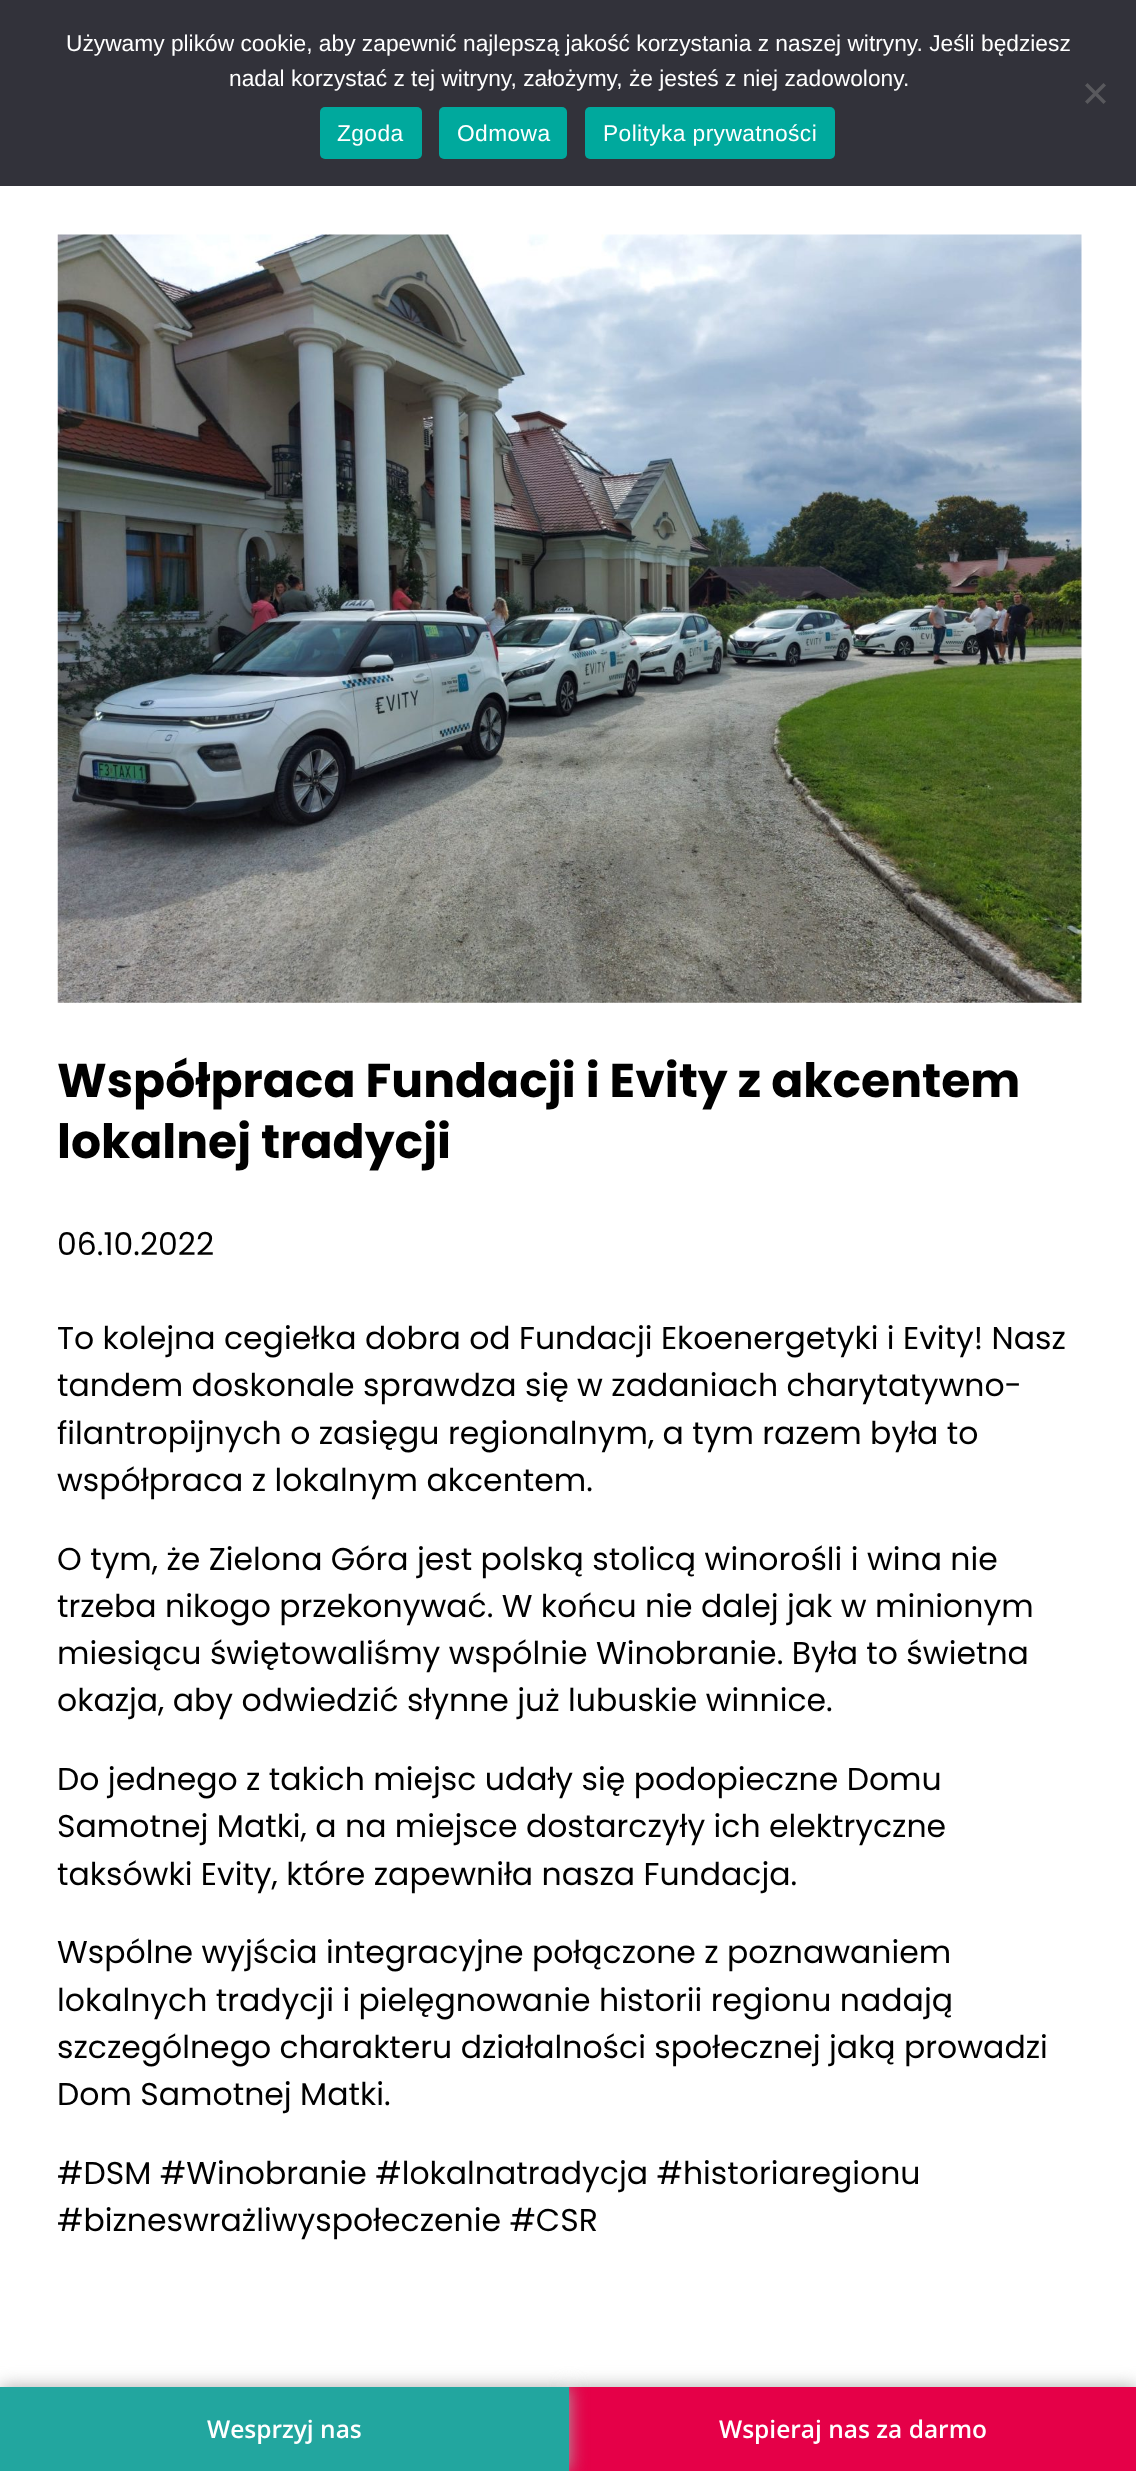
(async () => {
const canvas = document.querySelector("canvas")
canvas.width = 1136
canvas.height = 2471
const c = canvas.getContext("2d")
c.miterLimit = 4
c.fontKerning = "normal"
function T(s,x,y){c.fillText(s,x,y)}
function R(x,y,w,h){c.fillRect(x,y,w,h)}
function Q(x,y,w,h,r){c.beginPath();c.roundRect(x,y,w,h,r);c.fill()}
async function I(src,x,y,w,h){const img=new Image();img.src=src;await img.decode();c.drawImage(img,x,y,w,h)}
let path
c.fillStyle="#fff"
R(0,0,1136,2471)
c.fillStyle="#32323a"
R(0,0,1136,186)
c.font="22.75px Liberation Sans"
c.fillStyle="#fff"
T("Używamy plików cookie, aby zapewnić najlepszą jakość korzystania z naszej witryny. Jeśli będziesz",66,51)
T("nadal korzystać z tej witryny, założymy, że jesteś z niej zadowolony.",229,86)
c.fillStyle="#59595d"
path = new Path2D("M1103.5 83l2.5 2.5l-18.5 18.5l-2.5-2.5z")
c.fill(path)
path = new Path2D("M1085 85.5l2.5-2.5l18.5 18.5l-2.5 2.5z")
c.fill(path)
c.fillStyle="#00a99d"
Q(320,107,102,52,5)
c.letterSpacing="0.4px"
c.fillStyle="#fff"
T("Zgoda",337,141)
c.fillStyle="#00a99d"
Q(439,107,128,52,5)
c.fillStyle="#fff"
T("Odmowa",457,141)
c.fillStyle="#00a99d"
Q(585,107,250,52,5)
c.fillStyle="#fff"
T("Polityka prywatności",603,141)
await I("1.png",57,234,1025,769)
c.letterSpacing="0px"
c.font="bold 47.25px Poppins"
c.fillStyle="#000"
T("Współpraca Fundacji i Evity z akcentem",57,1097)
T("lokalnej tradycji",57,1158)
c.font="31.5px Poppins"
T("06.10.2022",57,1255)
T("To kolejna cegiełka dobra od Fundacji Ekoenergetyki i Evity! Nasz",57,1349)
T("tandem doskonale sprawdza się w zadaniach charytatywno-",57,1396)
T("filantropijnych o zasięgu regionalnym, a tym razem była to",57,1444)
T("współpraca z lokalnym akcentem.",57,1491)
T("O tym, że Zielona Góra jest polską stolicą winorośli i wina nie",57,1570)
T("trzeba nikogo przekonywać. W końcu nie dalej jak w minionym",57,1617)
T("miesiącu świętowaliśmy wspólnie Winobranie. Była to świetna",57,1664)
T("okazja, aby odwiedzić słynne już lubuskie winnice.",57,1711)
T("Do jednego z takich miejsc udały się podopieczne Domu",57,1790)
T("Samotnej Matki, a na miejsce dostarczyły ich elektryczne",57,1837)
T("taksówki Evity, które zapewniła nasza Fundacja.",57,1885)
T("Wspólne wyjścia integracyjne połączone z poznawaniem",57,1963)
T("lokalnych tradycji i pielęgnowanie historii regionu nadają",57,2011)
T("szczególnego charakteru działalności społecznej jaką prowadzi",57,2058)
T("Dom Samotnej Matki.",57,2105)
T("#DSM #Winobranie #lokalnatradycja #historiaregionu",57,2184)
T("#bizneswrażliwyspołeczenie #CSR",57,2231)
c.fillStyle="#aaa"
c.filter="blur(9px)"
c.beginPath()
c.rect(569,2387,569,84)
c.fill()
c.filter="none"
c.fillStyle="#e50048"
R(569,2387,567,84)
c.fillStyle="#aaa"
c.filter="blur(9px)"
c.beginPath()
c.rect(0,2387,569,84)
c.fill()
c.filter="none"
c.fillStyle="#22a69f"
R(0,2387,569,84)
c.font="600 24.5px Open Sans"
c.fillStyle="#fff"
T("Wesprzyj nas",207,2438)
T("Wspieraj nas za darmo",719,2438)
})()
